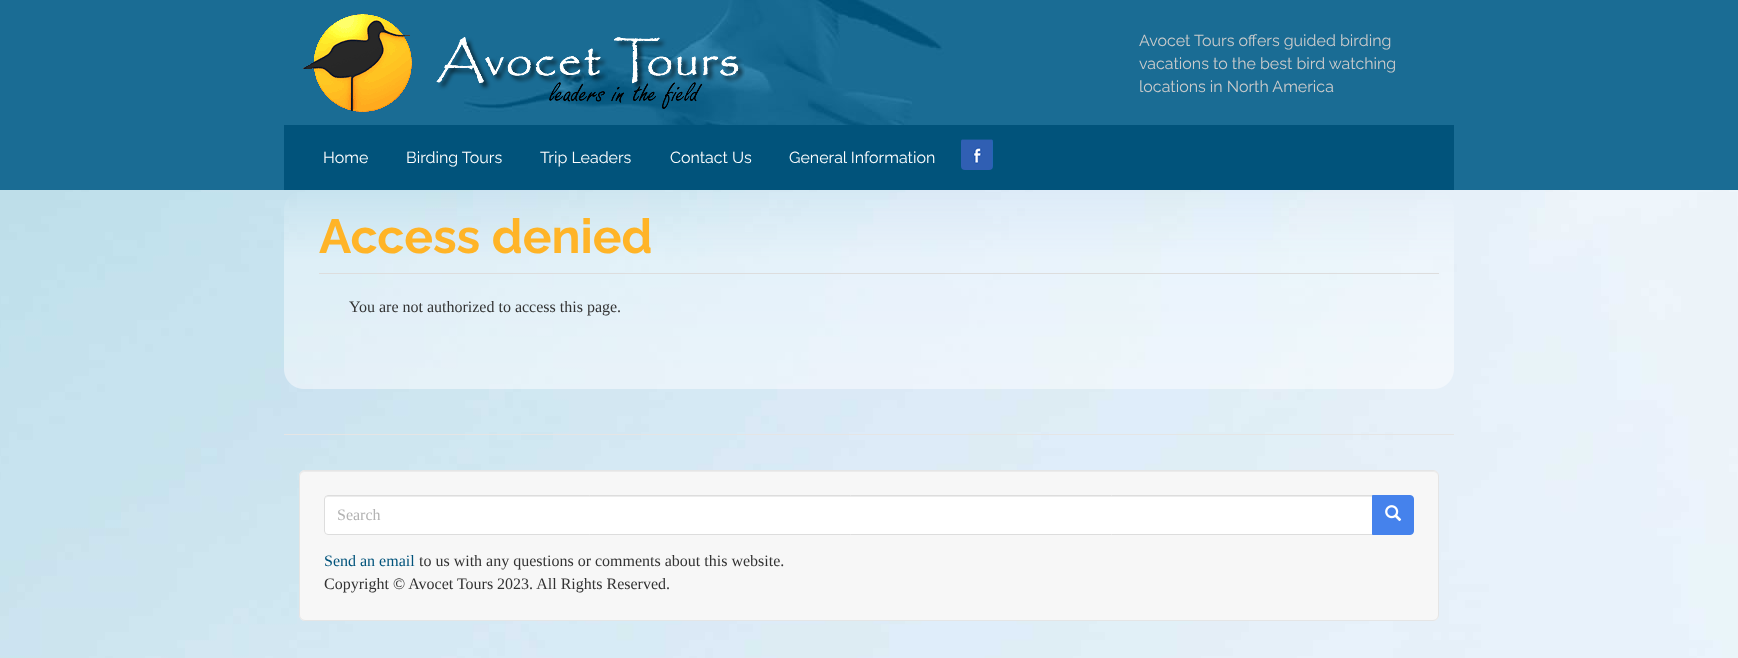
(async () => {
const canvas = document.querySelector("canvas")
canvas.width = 1738
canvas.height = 658
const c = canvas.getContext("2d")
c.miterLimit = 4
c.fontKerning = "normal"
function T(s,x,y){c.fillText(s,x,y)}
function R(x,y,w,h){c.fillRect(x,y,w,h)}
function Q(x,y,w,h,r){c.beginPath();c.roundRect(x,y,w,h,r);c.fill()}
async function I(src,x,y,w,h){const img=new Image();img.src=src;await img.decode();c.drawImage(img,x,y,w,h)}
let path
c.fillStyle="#fff"
R(0,0,1738,658)
await I("1.png",0,190,1738,468)
c.fillStyle="#1a6c94"
R(0,0,1738,190)
await I("2.png",464,0,544,125)
await I("3.png",303,14,442,98)
c.font="16px Raleway"
c.fillStyle="#ccc"
T("Avocet Tours offers guided birding",1139,46)
T("vacations to the best bird watching",1139,69)
T("locations in North America",1139,92)
c.fillStyle="#01537b"
R(284,125,1170,65)
c.fillStyle="#fff"
T("Home",323,163)
T("Birding Tours",406,163)
T("Trip Leaders",540,163)
T("Contact Us",670,163)
T("General Information",789,163)
await I("4.png",961,139,32,31)
c.fillStyle="#ddd"
R(319,273,1120,1)
c.font="bold 48px Raleway"
c.fillStyle="#ffb427"
T("Access denied",319,253)
c.font="16px Liberation Serif"
c.fillStyle="#333"
T("You are not authorized to access this page.",349,312)
c.fillStyle="#e5e5e5"
R(284,434,1170,1)
c.fillStyle="#f7f7f7"
Q(299,470,1140,151,6)
c.fillStyle="#ebebeb"
path = new Path2D("M305 472h1128c3 0 5 2 5 5c0-3-2-6-5-6h-1128c-3 0-5 3-5 6c0-3 2-5 5-5z")
c.fill(path)
c.beginPath()
c.roundRect(299.5,470.5,1139,150,5.5)
c.strokeStyle="#e5e5e5"
c.stroke()
c.fillStyle="#fff"
c.beginPath()
c.roundRect(324,495,1049,40,[4,0,0,4])
c.fill()
c.fillStyle="#ececec"
path = new Path2D("M328 497h1044v-1h-1044c-2 0-3 2-3 4c0-2 1-3 3-3z")
c.fill(path)
c.beginPath()
c.roundRect(324.5,495.5,1048,39,[3.5,0,0,3.5])
c.strokeStyle="#ddd"
c.stroke()
c.fillStyle="#b3b3b3"
T("Search",337,520)
c.fillStyle="#4582ec"
c.beginPath()
c.roundRect(1372.5,495.5,41,39,[0,3.5,3.5,0])
c.fill()
c.strokeStyle="#4582ec"
c.stroke()
await I("5.png",1385,505,17,17)
c.fillStyle="#01537b"
T("Send an email",324,566)
c.fillStyle="#333"
T("to us with any questions or comments about this website.",419,566)
T("Copyright © Avocet Tours 2023. All Rights Reserved.",324,589)
})()
